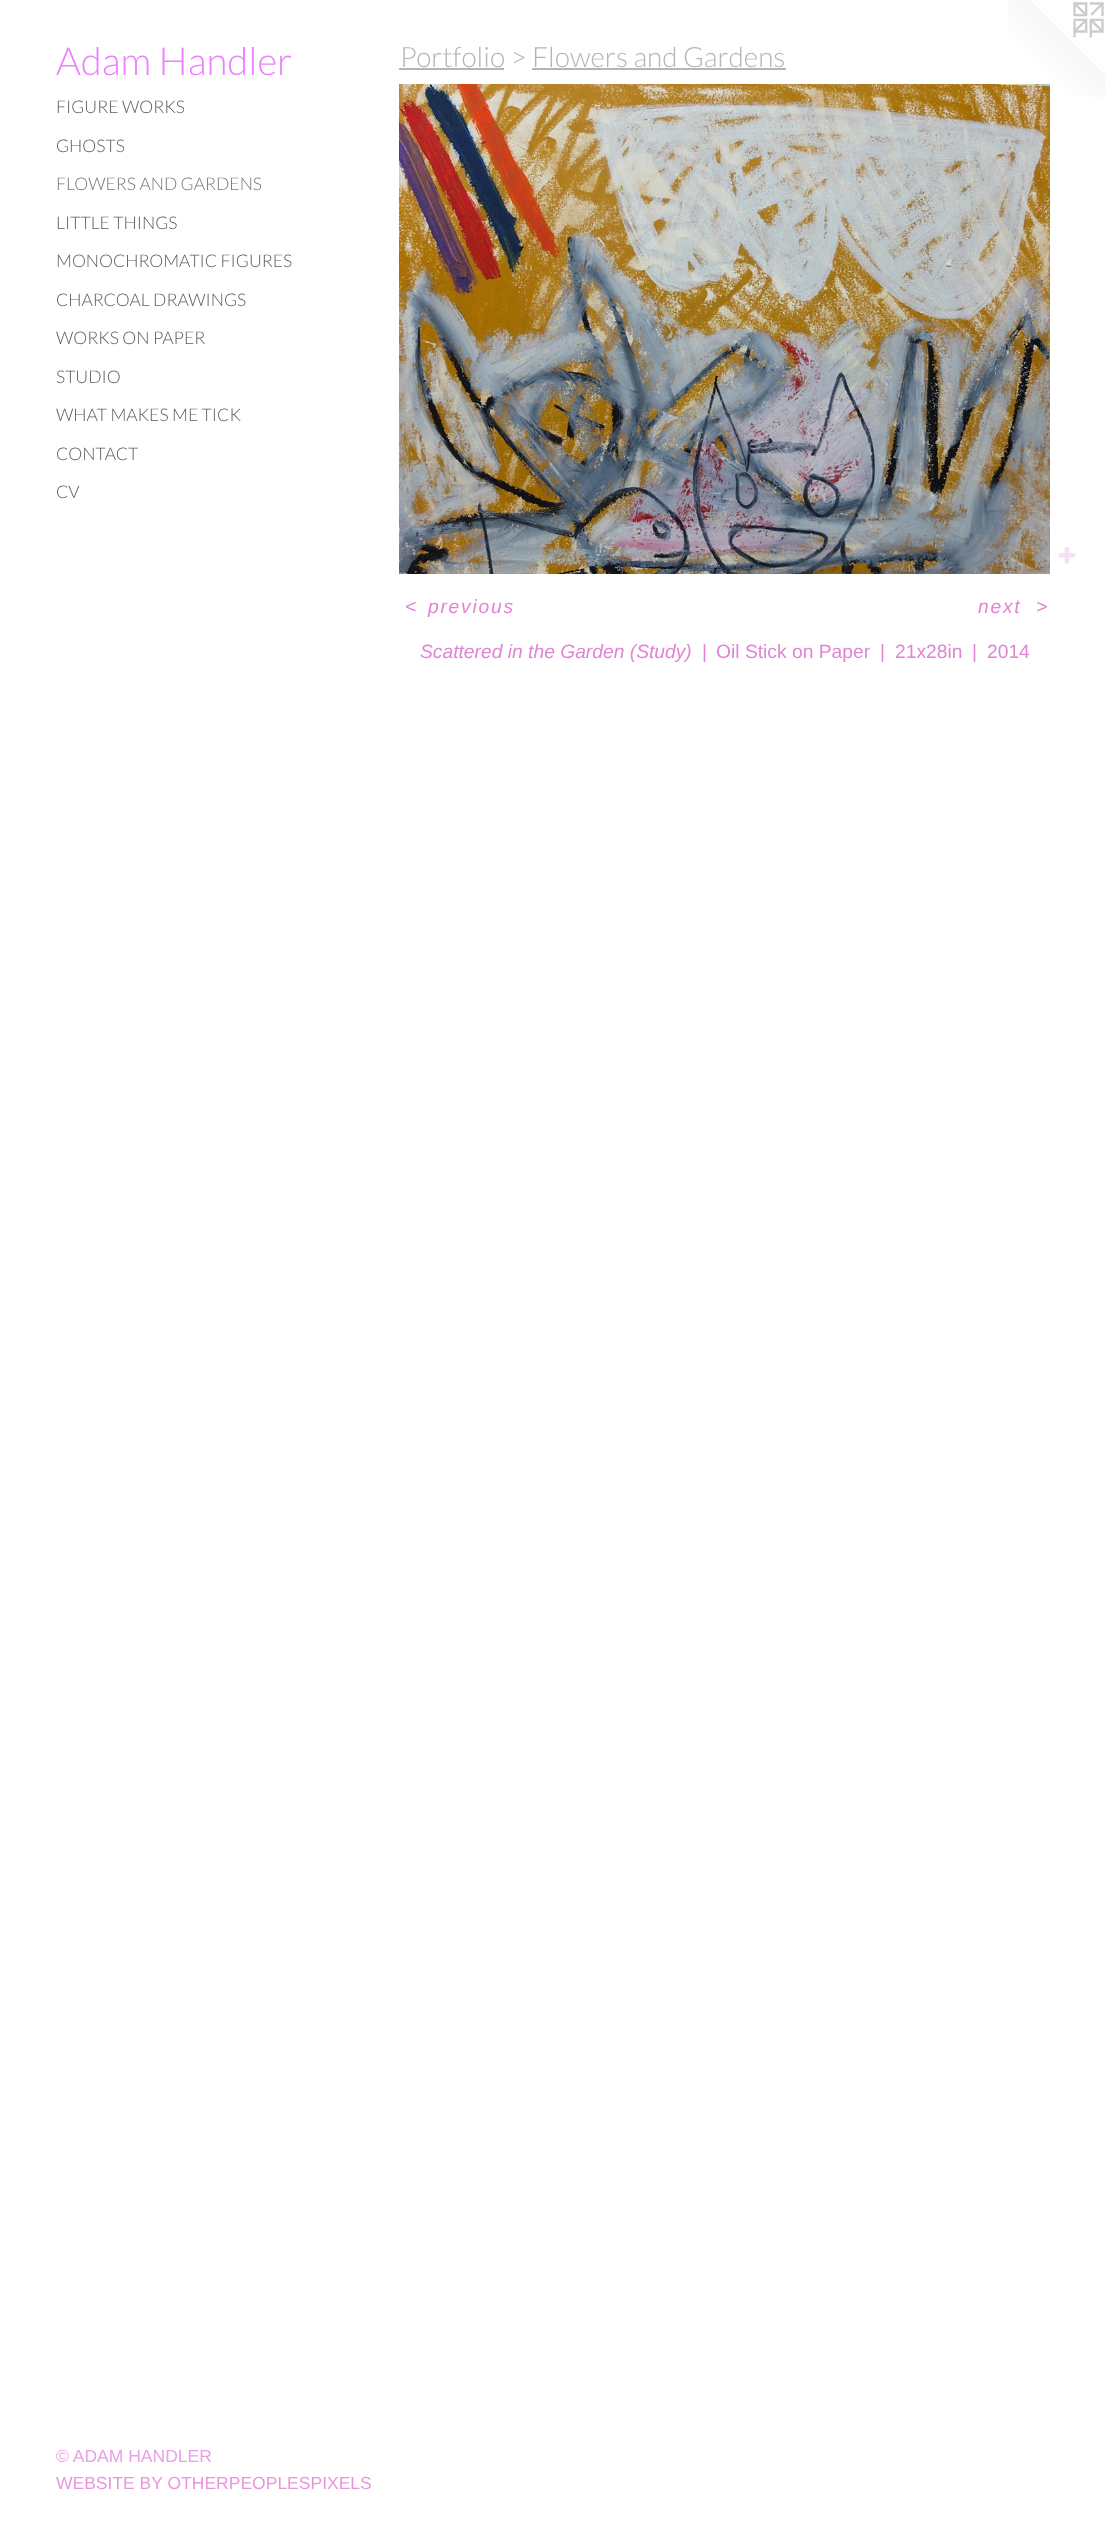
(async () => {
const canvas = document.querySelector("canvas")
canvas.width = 1105
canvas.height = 2535
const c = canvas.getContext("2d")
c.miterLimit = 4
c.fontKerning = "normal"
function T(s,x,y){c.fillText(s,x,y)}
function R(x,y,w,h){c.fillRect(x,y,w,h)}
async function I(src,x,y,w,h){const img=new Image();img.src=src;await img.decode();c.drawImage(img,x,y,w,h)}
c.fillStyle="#fff"
R(0,0,1105,2535)
c.font="300 38.5px Lato"
c.fillStyle="#ed80ff"
T("Adam Handler",56,75)
c.font="300 17.5px Lato"
c.fillStyle="#5c5c5c"
T("FIGURE WORKS",56,113)
T("GHOSTS",56,152)
c.fillStyle="#767676"
T("FLOWERS AND GARDENS",56,190)
c.fillStyle="#5c5c5c"
T("LITTLE THINGS",56,229)
T("MONOCHROMATIC FIGURES",56,267)
T("CHARCOAL DRAWINGS",56,306)
T("WORKS ON PAPER",56,344)
T("STUDIO",56,383)
T("WHAT MAKES ME TICK",56,421)
T("CONTACT",56,460)
T("CV",56,498)
c.font="17.5px Liberation Sans"
c.fillStyle="#e99fe3"
T("© ADAM HANDLER",56,2462)
c.fillStyle="#e995db"
T("WEBSITE BY OTHERPEOPLESPIXELS",56,2489)
c.font="300 28px Lato"
c.fillStyle="#b5b5b5"
T("Portfolio > Flowers and Gardens",400,67)
R(399,68,105,2)
R(532,68,254,2)
await I("3.png",1008,0,97,97)
await I("1.png",399,84,651,490)
await I("2.png",1058,547,18,17)
c.letterSpacing="1.75px"
c.font="italic 19.25px Liberation Sans"
c.fillStyle="#e085d2"
T("<",405,613)
T("previous",428,613)
T("next",978,613)
T(">",1036,613)
c.letterSpacing="0px"
T("Scattered in the Garden (Study)",420,658)
c.font="19.25px Liberation Sans"
T("|",702,658)
T("Oil Stick on Paper",716,658)
T("|",880,658)
T("21x28in",895,658)
T("|",972,658)
T("2014",987,658)
})()
